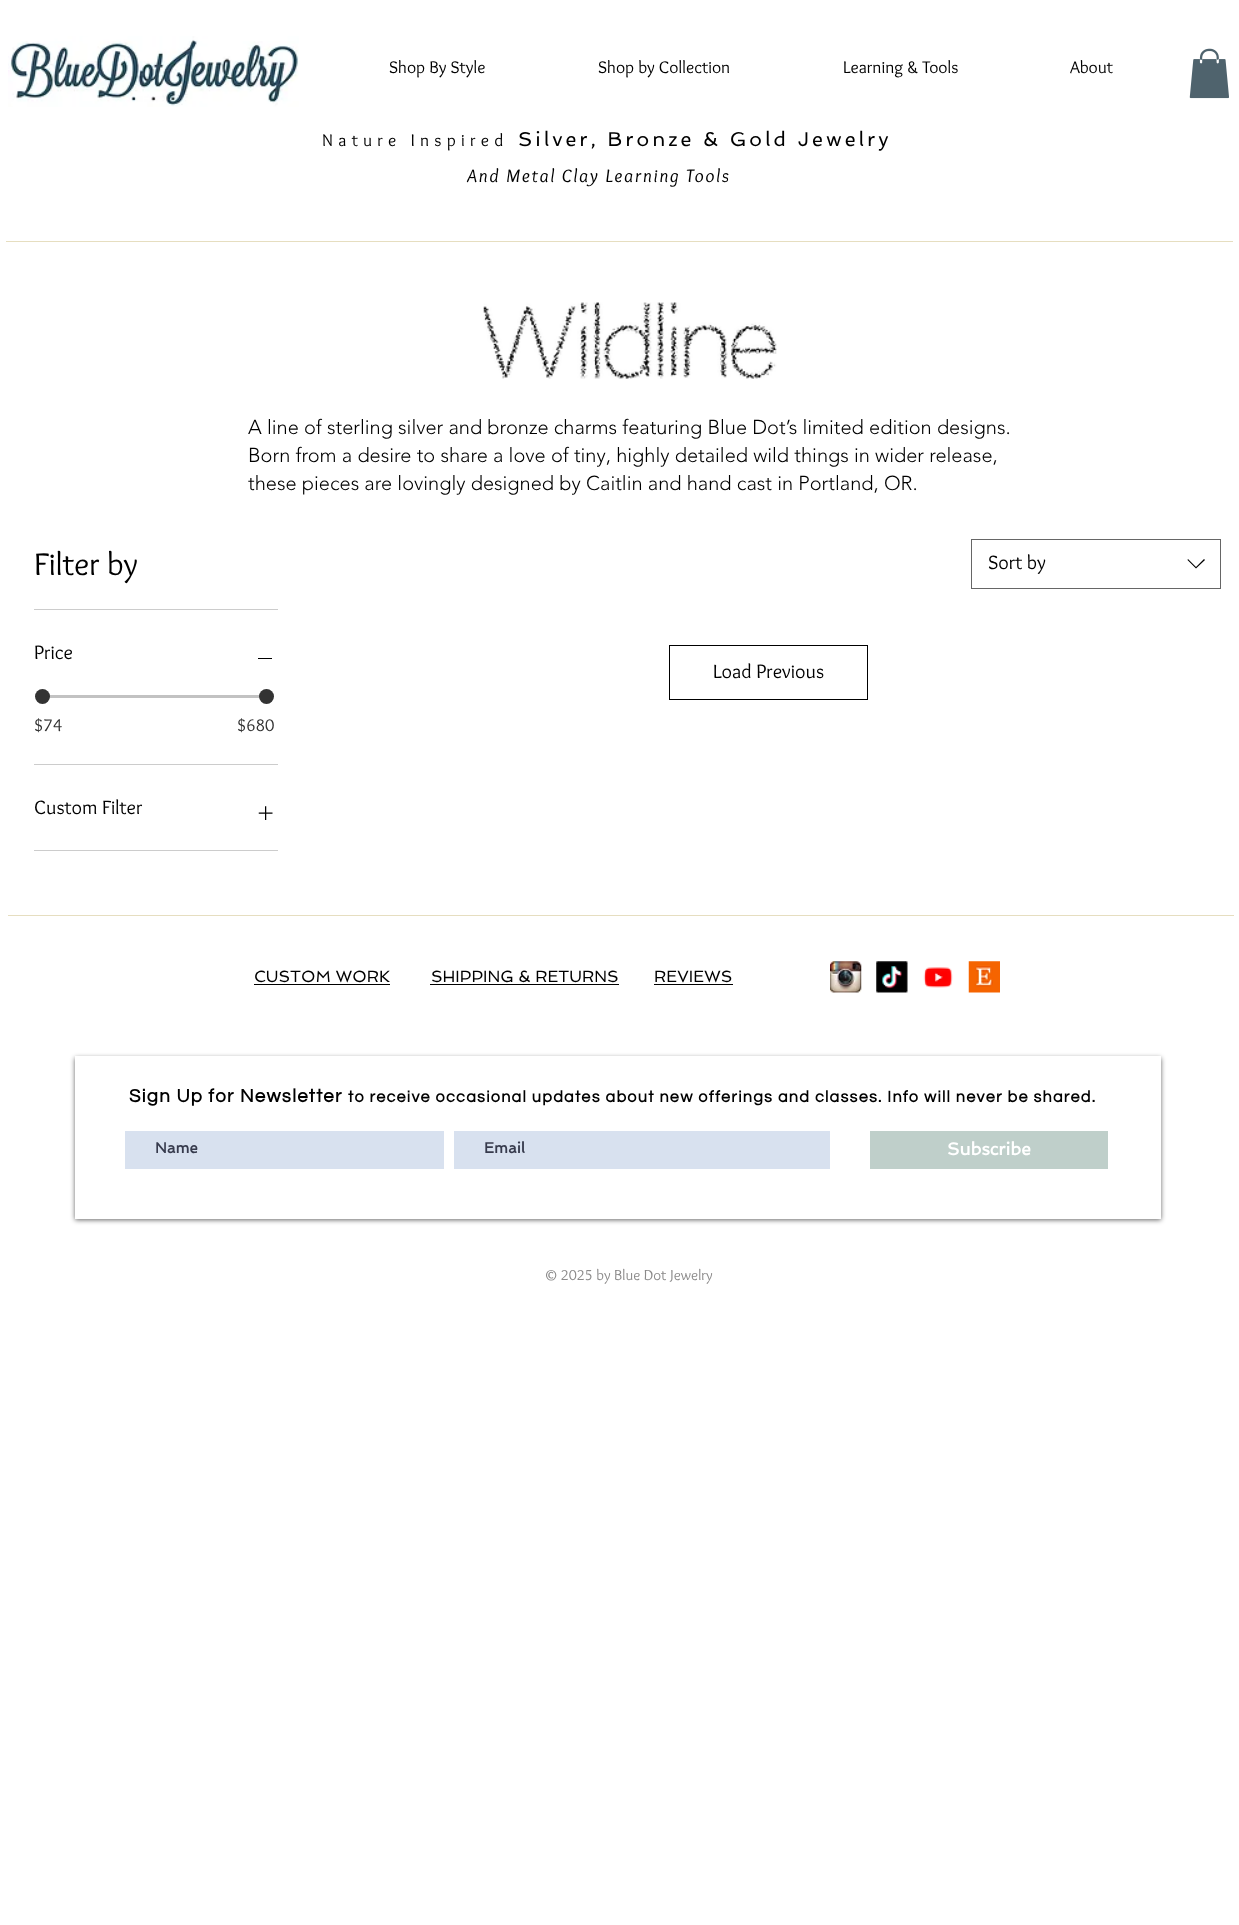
(async () => {
const canvas = document.querySelector("canvas")
canvas.width = 1239
canvas.height = 1925
const c = canvas.getContext("2d")
c.miterLimit = 4
c.fontKerning = "normal"
function T(s,x,y){c.fillText(s,x,y)}
function R(x,y,w,h){c.fillRect(x,y,w,h)}
async function I(src,x,y,w,h){const img=new Image();img.src=src;await img.decode();c.drawImage(img,x,y,w,h)}
let path
c.fillStyle="#fff"
R(0,0,1239,1925)
await I("1.png",8,36,291,71)
c.font="17.5px Overlock"
c.fillStyle="#000"
T("Shop By Style",389,73)
T("Shop by Collection",598,73)
T("Learning & Tools",843,73)
T("About",1070,73)
await I("2.png",1189,48,40,51)
c.letterSpacing="5.25px"
T("Nature Inspired",322,146)
c.letterSpacing="3px"
c.font="20px Spinnaker"
T("Silver, Bronze & Gold Jewelry",518,146)
c.letterSpacing="1.9px"
c.font="italic 18.75px Overlock"
T("And Metal Clay Learning Tools",467,182)
c.fillStyle="#e6dec0"
R(6,241,1227,1)
await I("3.png",483,302,294,77)
c.letterSpacing="0px"
c.font="300 20px 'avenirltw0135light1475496'"
c.fillStyle="#000"
T("A line of sterling silver and bronze charms featuring Blue Dot’s limited edition designs.",248,434)
T("Born from a desire to share a love of tiny, highly detailed wild things in wider release,",248,462)
T("these pieces are lovingly designed by Caitlin and hand cast in Portland, OR.",248,490)
c.fillStyle="#ccc"
R(34,609,244,1)
c.font="32.5px Overlock"
c.fillStyle="#000"
T("Filter by",34,575)
c.fillStyle="#ccc"
R(34,764,244,1)
c.font="20px Overlock"
c.fillStyle="#000"
T("Price",34,659)
R(258,658,14,1)
c.fillStyle="#c2c2c2"
R(41,695,224,3)
c.fillStyle="#333"
c.beginPath()
c.arc(42.5,696.5,7.5,0,7)
c.fill()
c.beginPath()
c.arc(266.5,696.5,7.5,0,7)
c.fill()
c.font="17.5px Overlock"
T("$74",34,731)
T("$680",237,731)
c.fillStyle="#ccc"
R(34,850,244,1)
c.font="20px Overlock"
c.fillStyle="#000"
T("Custom Filter",34,814)
await I("4.png",258,806,15,14)
c.strokeStyle="#666"
c.strokeRect(971.5,539.5,249,49)
T("Sort by",988,569)
path = new Path2D("M1204 559l1 1l-9 8.5l-8.5-8.5l.5-1l8 8z")
c.fill(path,"evenodd")
c.strokeStyle="#000"
c.strokeRect(669.5,645.5,198,54)
T("Load Previous",713,678)
c.fillStyle="#e6dec0"
R(8,915,1226,1)
c.font="16.25px Spinnaker"
c.fillStyle="#000"
T("CUSTOM WORK",254,982)
R(254,984,136,1)
T("SHIPPING & RETURNS",431,982)
R(430,984,189,1)
T("REVIEWS",654,982)
R(654,984,79,1)
await I("5.png",830,961,32,32)
await I("6.png",876,961,32,32)
await I("7.png",923,967,30,21)
await I("8.png",968,961,32,32)
c.fillStyle="#00000099"
c.filter="blur(2.5px)"
c.beginPath()
c.rect(75,1058,1086,162)
c.fill()
c.filter="none"
c.fillStyle="#fff"
R(75,1056,1086,163)
c.letterSpacing="1.25px"
c.font="bold 18.75px Questrial"
c.fillStyle="#000"
T("Sign Up for Newsletter",129,1102)
c.font="bold 16.25px Questrial"
T("to receive occasional updates about new offerings and classes. Info will never be shared.",348,1102)
c.fillStyle="#d8e1ef"
R(125,1131,319,38)
c.letterSpacing="0px"
c.font="bold 15px Spinnaker"
c.fillStyle="#373b4d"
T("Name",155,1153)
c.fillStyle="#d8e1ef"
R(454,1131,376,38)
c.fillStyle="#373b4d"
T("Email",484,1153)
c.fillStyle="#bfcfca"
R(870,1131,238,38)
c.font="bold 17.5px Spinnaker"
c.fillStyle="#fff"
T("Subscribe",947,1155)
c.font="15px Overlock"
c.fillStyle="#8b8a8a"
T("© 2025 by Blue Dot Jewelry",544,1280)
})()
